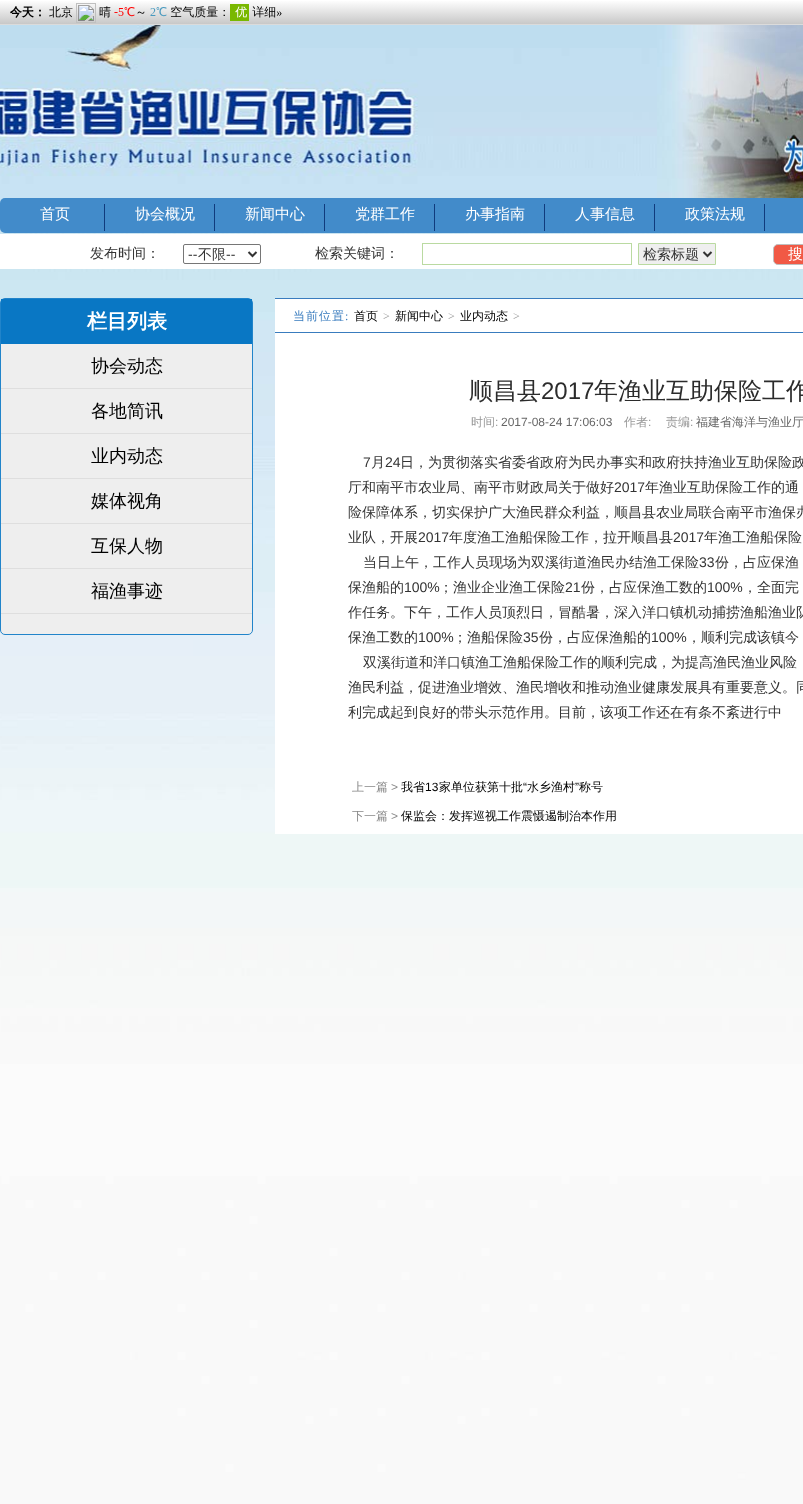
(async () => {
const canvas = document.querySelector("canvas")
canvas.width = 803
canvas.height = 1504
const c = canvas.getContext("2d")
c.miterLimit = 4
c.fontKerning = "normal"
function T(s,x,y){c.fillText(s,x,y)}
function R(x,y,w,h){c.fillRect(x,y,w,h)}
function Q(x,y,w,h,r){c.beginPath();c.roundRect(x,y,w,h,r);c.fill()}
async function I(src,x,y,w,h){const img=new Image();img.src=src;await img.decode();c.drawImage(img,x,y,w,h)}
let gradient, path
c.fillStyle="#fff"
R(0,0,803,1504)
await I("1.png",0,25,803,1479)
gradient = c.createLinearGradient(0,0,0,24)
gradient.addColorStop(0,"#fff")
gradient.addColorStop(1,"#c8c8c8")
c.fillStyle = gradient
R(0,1,803,23)
c.fillStyle="#dbdbdb"
R(0,24,803,1)
await I("2.png",10,3,272,20)
await I("3.png",657,25,146,173)
c.fillStyle="#428bca"
Q(0,198,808,35,5)
c.fillStyle="#103b7d"
R(104,204,1,27)
c.font="500 15px WenQuanYi Zen Hei"
c.fillStyle="#fff"
T("首页",40,219)
c.fillStyle="#103b7d"
R(214,204,1,27)
c.fillStyle="#fff"
T("协会概况",135,219)
c.fillStyle="#103b7d"
R(324,204,1,27)
c.fillStyle="#fff"
T("新闻中心",245,219)
c.fillStyle="#103b7d"
R(434,204,1,27)
c.fillStyle="#fff"
T("党群工作",355,219)
c.fillStyle="#103b7d"
R(544,204,1,27)
c.fillStyle="#fff"
T("办事指南",465,219)
c.fillStyle="#103b7d"
R(654,204,1,27)
c.fillStyle="#fff"
T("人事信息",575,219)
c.fillStyle="#103b7d"
R(764,204,1,27)
c.fillStyle="#fff"
T("政策法规",685,219)
R(0,234,803,35)
c.font="500 14px WenQuanYi Zen Hei"
c.fillStyle="#333"
T("发布时间：",90,258)
c.beginPath()
c.roundRect(183.5,244.5,77,19,1.5)
c.strokeStyle="#767676"
c.stroke()
path = new Path2D("M248.5 252l4 4l4-4")
c.strokeStyle="#333"
c.lineWidth=2
c.stroke(path)
c.font="14px Liberation Sans"
T("--",188,259)
c.font="500 14px WenQuanYi Zen Hei"
T("不限",198,259)
c.font="14px Liberation Sans"
T("--",226,259)
c.font="500 14px WenQuanYi Zen Hei"
T("检索关键词：",315,258)
c.strokeStyle="#badaa1"
c.lineWidth=1
c.strokeRect(422.5,243.5,209,21)
c.fillStyle="#efefef"
c.beginPath()
c.rect(638.5,243.5,77,21)
c.fill()
c.stroke()
path = new Path2D("M703.5 252l4 4l4-4")
c.strokeStyle="#333"
c.lineWidth=2
c.stroke(path)
c.fillStyle="#333"
T("检索标题",643,259)
c.fillStyle="#f15945"
c.beginPath()
c.roundRect(773.5,244.5,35,20,4.5)
c.fill()
c.strokeStyle="#bfbfbf"
c.lineWidth=1
c.stroke()
c.font="500 15px WenQuanYi Zen Hei"
c.fillStyle="#fff"
T("搜",788,259)
c.fillStyle="#eee"
c.beginPath()
c.roundRect(.5,298.5,252,336,4.5)
c.fill()
c.strokeStyle="#2184ca"
c.stroke()
c.fillStyle="#0977c4"
R(1,299,251,45)
c.font="bold 20px WenQuanYi Zen Hei"
c.fillStyle="#fff"
T("栏目列表",87,328)
c.fillStyle="#dedede"
R(1,388,251,1)
c.font="500 18px WenQuanYi Zen Hei"
c.fillStyle="#000"
T("协会动态",91,372)
c.fillStyle="#dedede"
R(1,433,251,1)
c.fillStyle="#000"
T("各地简讯",91,417)
c.fillStyle="#dedede"
R(1,478,251,1)
c.fillStyle="#000"
T("业内动态",91,462)
c.fillStyle="#dedede"
R(1,523,251,1)
c.fillStyle="#000"
T("媒体视角",91,507)
c.fillStyle="#dedede"
R(1,568,251,1)
c.fillStyle="#000"
T("互保人物",91,552)
c.fillStyle="#dedede"
R(1,613,251,1)
c.fillStyle="#000"
T("福渔事迹",91,597)
c.fillStyle="#fff"
R(275,299,528,535)
c.fillStyle="#397cbe"
R(275,298,528,1)
R(275,332,528,1)
c.letterSpacing="1px"
c.font="500 12px WenQuanYi Zen Hei"
T("当前位置",293,320)
c.font="12px Liberation Serif"
T(":",345,320)
c.letterSpacing="0px"
c.font="500 12px WenQuanYi Zen Hei"
c.fillStyle="#000"
T("首页",354,320)
c.font="12px Liberation Serif"
c.fillStyle="#999"
T(">",383,320)
c.font="500 12px WenQuanYi Zen Hei"
c.fillStyle="#000"
T("新闻中心",395,320)
c.font="12px Liberation Serif"
c.fillStyle="#999"
T(">",448,320)
c.font="500 12px WenQuanYi Zen Hei"
c.fillStyle="#000"
T("业内动态",460,320)
c.font="12px Liberation Serif"
c.fillStyle="#999"
T(">",513,320)
c.font="500 24px WenQuanYi Zen Hei"
c.fillStyle="#2b2b2b"
T("顺昌县",469,399)
c.font="24px Liberation Sans"
T("2017",541,399)
c.font="500 24px WenQuanYi Zen Hei"
T("年渔业互助保险工作",594,399)
c.font="500 12px WenQuanYi Zen Hei"
c.fillStyle="#999"
T("时间",471,426)
c.font="12px Liberation Sans"
T(":",495,426)
c.fillStyle="#666"
T("2017-08-24 17:06:03",501,426)
c.font="500 12px WenQuanYi Zen Hei"
c.fillStyle="#999"
T("作者",624,426)
c.font="12px Liberation Sans"
T(":",648,426)
c.font="500 12px WenQuanYi Zen Hei"
T("责编",666,426)
c.font="12px Liberation Sans"
T(":",690,426)
c.font="500 12px WenQuanYi Zen Hei"
c.fillStyle="#666"
T("福建省海洋与渔业厅",696,426)
c.font="14px Liberation Sans"
c.fillStyle="#333"
T("7",363,467)
c.font="500 14px WenQuanYi Zen Hei"
T("月",371,467)
c.font="14px Liberation Sans"
T("24",385,467)
c.font="500 14px WenQuanYi Zen Hei"
T("日，为贯彻落实省委省政府为民办事实和政府扶持渔业互助保险政",400,467)
T("厅和南平市农业局、南平市财政局关于做好",348,492)
c.font="14px Liberation Sans"
T("2017",614,492)
c.font="500 14px WenQuanYi Zen Hei"
T("年渔业互助保险工作的通",645,492)
T("险保障体系，切实保护广大渔民群众利益，顺昌县农业局联合南平市渔保办",348,517)
T("业队，开展",348,542)
c.font="14px Liberation Sans"
T("2017",418,542)
c.font="500 14px WenQuanYi Zen Hei"
T("年度渔工渔船保险工作，拉开顺昌县",449,542)
c.font="14px Liberation Sans"
T("2017",673,542)
c.font="500 14px WenQuanYi Zen Hei"
T("年渔工渔船保险",704,542)
T("当日上午，工作人员现场为双溪街道渔民办结渔工保险",363,567)
c.font="14px Liberation Sans"
T("33",699,567)
c.font="500 14px WenQuanYi Zen Hei"
T("份，占应保渔",715,567)
T("保渔船的",348,592)
c.font="14px Liberation Sans"
T("100%",404,592)
c.font="500 14px WenQuanYi Zen Hei"
T("；渔业企业渔工保险",439,592)
c.font="14px Liberation Sans"
T("21",565,592)
c.font="500 14px WenQuanYi Zen Hei"
T("份，占应保渔工数的",581,592)
c.font="14px Liberation Sans"
T("100%",707,592)
c.font="500 14px WenQuanYi Zen Hei"
T("，全面完",743,592)
T("作任务。下午，工作人员顶烈日，冒酷暑，深入洋口镇机动捕捞渔船渔业队",348,617)
T("保渔工数的",348,642)
c.font="14px Liberation Sans"
T("100%",418,642)
c.font="500 14px WenQuanYi Zen Hei"
T("；渔船保险",453,642)
c.font="14px Liberation Sans"
T("35",523,642)
c.font="500 14px WenQuanYi Zen Hei"
T("份，占应保渔船的",539,642)
c.font="14px Liberation Sans"
T("100%",651,642)
c.font="500 14px WenQuanYi Zen Hei"
T("，顺利完成该镇今",687,642)
T("双溪街道和洋口镇渔工渔船保险工作的顺利完成，为提高渔民渔业风险",363,667)
T("渔民利益，促进渔业增效、渔民增收和推动渔业健康发展具有重要意义。同",348,692)
T("利完成起到良好的带头示范作用。目前，该项工作还在有条不紊进行中",348,717)
c.font="500 12px WenQuanYi Zen Hei"
c.fillStyle="#888"
T("上一篇",352,791)
c.font="12px Liberation Sans"
T(">",391,791)
c.font="500 12px WenQuanYi Zen Hei"
c.fillStyle="#000"
T("我省",401,791)
c.font="12px Liberation Sans"
T("13",425,791)
c.font="500 12px WenQuanYi Zen Hei"
T("家单位获第十批",439,791)
c.font="12px Liberation Sans"
T("“",523,791)
c.font="500 12px WenQuanYi Zen Hei"
T("水乡渔村",527,791)
c.font="12px Liberation Sans"
T("”",575,791)
c.font="500 12px WenQuanYi Zen Hei"
T("称号",579,791)
c.fillStyle="#888"
T("下一篇",352,820)
c.font="12px Liberation Sans"
T(">",391,820)
c.font="500 12px WenQuanYi Zen Hei"
c.fillStyle="#000"
T("保监会：发挥巡视工作震慑遏制治本作用",401,820)
})()
